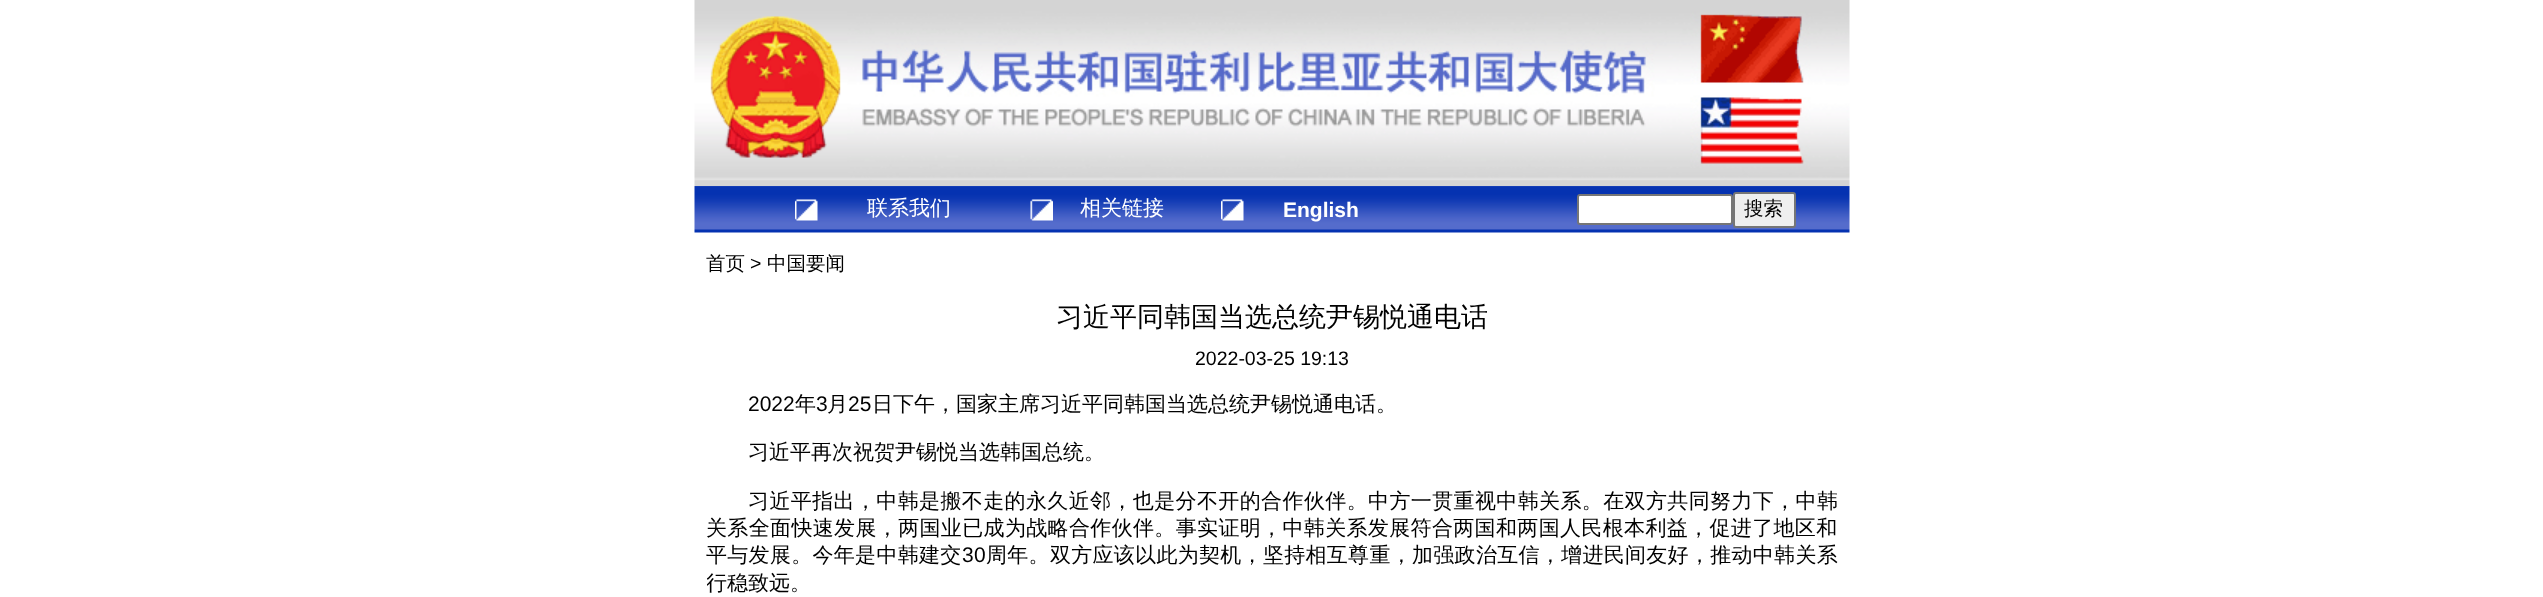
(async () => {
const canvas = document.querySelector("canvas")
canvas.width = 2543
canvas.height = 597
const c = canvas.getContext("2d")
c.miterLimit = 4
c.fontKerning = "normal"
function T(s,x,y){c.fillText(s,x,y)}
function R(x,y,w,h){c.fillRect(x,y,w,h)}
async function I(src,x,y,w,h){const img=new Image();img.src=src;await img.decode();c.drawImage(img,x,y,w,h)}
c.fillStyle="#fff"
R(0,0,2543,597)
await I("1.png",694,0,1156,186)
await I("2.png",694,186,1156,47)
await I("3.png",795,199,23,22)
c.font="500 21px WenQuanYi Zen Hei"
T("联系我们",867,215)
await I("4.png",1030,199,23,22)
T("相关链接",1080,215)
await I("5.png",1221,199,23,22)
c.font="bold 21px Liberation Sans"
T("English",1283,217)
c.beginPath()
c.roundRect(1578,195,154,29,2)
c.fill()
c.strokeStyle="#767676"
c.lineWidth=2
c.stroke()
c.fillStyle="#efefef"
c.beginPath()
c.roundRect(1734,193,61,34,2)
c.fill()
c.stroke()
c.font="500 19.5px WenQuanYi Zen Hei"
c.fillStyle="#000"
T("搜索",1744,215)
T("首页",706,270)
c.font="19.5px Liberation Sans"
T(">",750,270)
c.font="500 19.5px WenQuanYi Zen Hei"
T("中国要闻",767,270)
c.font="500 27px WenQuanYi Zen Hei"
T("习近平同韩国当选总统尹锡悦通电话",1056,326)
c.font="19.5px Liberation Sans"
T("2022-03-25 19:13",1195,365)
c.font="21px Liberation Sans"
T("2022",748,411)
c.font="500 21px WenQuanYi Zen Hei"
T("年",795,411)
c.font="21px Liberation Sans"
T("3",816,411)
c.font="500 21px WenQuanYi Zen Hei"
T("月",827,411)
c.font="21px Liberation Sans"
T("25",848,411)
c.font="500 21px WenQuanYi Zen Hei"
T("日下午，国家主席习近平同韩国当选总统尹锡悦通电话。",872,411)
T("习近平再次祝贺尹锡悦当选韩国总统。",748,459)
c.letterSpacing="0.38px"
T("习近平指出，中韩是搬不走的永久近邻，也是分不开的合作伙伴。中方一贯重视中韩关系。在双方共同努力下，中韩",748,508)
c.letterSpacing="0.35px"
T("关系全面快速发展，两国业已成为战略合作伙伴。事实证明，中韩关系发展符合两国和两国人民根本利益，促进了地区和",706,535)
c.letterSpacing="0.3px"
T("平与发展。今年是中韩建交",706,562)
c.font="21px Liberation Sans"
T("30",962,562)
c.font="500 21px WenQuanYi Zen Hei"
T("周年。双方应该以此为契机，坚持相互尊重，加强政治互信，增进民间友好，推动中韩关系",986,562)
c.save()
c.beginPath()
c.rect(707,369,1131,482)
c.clip()
c.letterSpacing="0px"
T("行稳致远。",706,590)
c.restore()
})()
